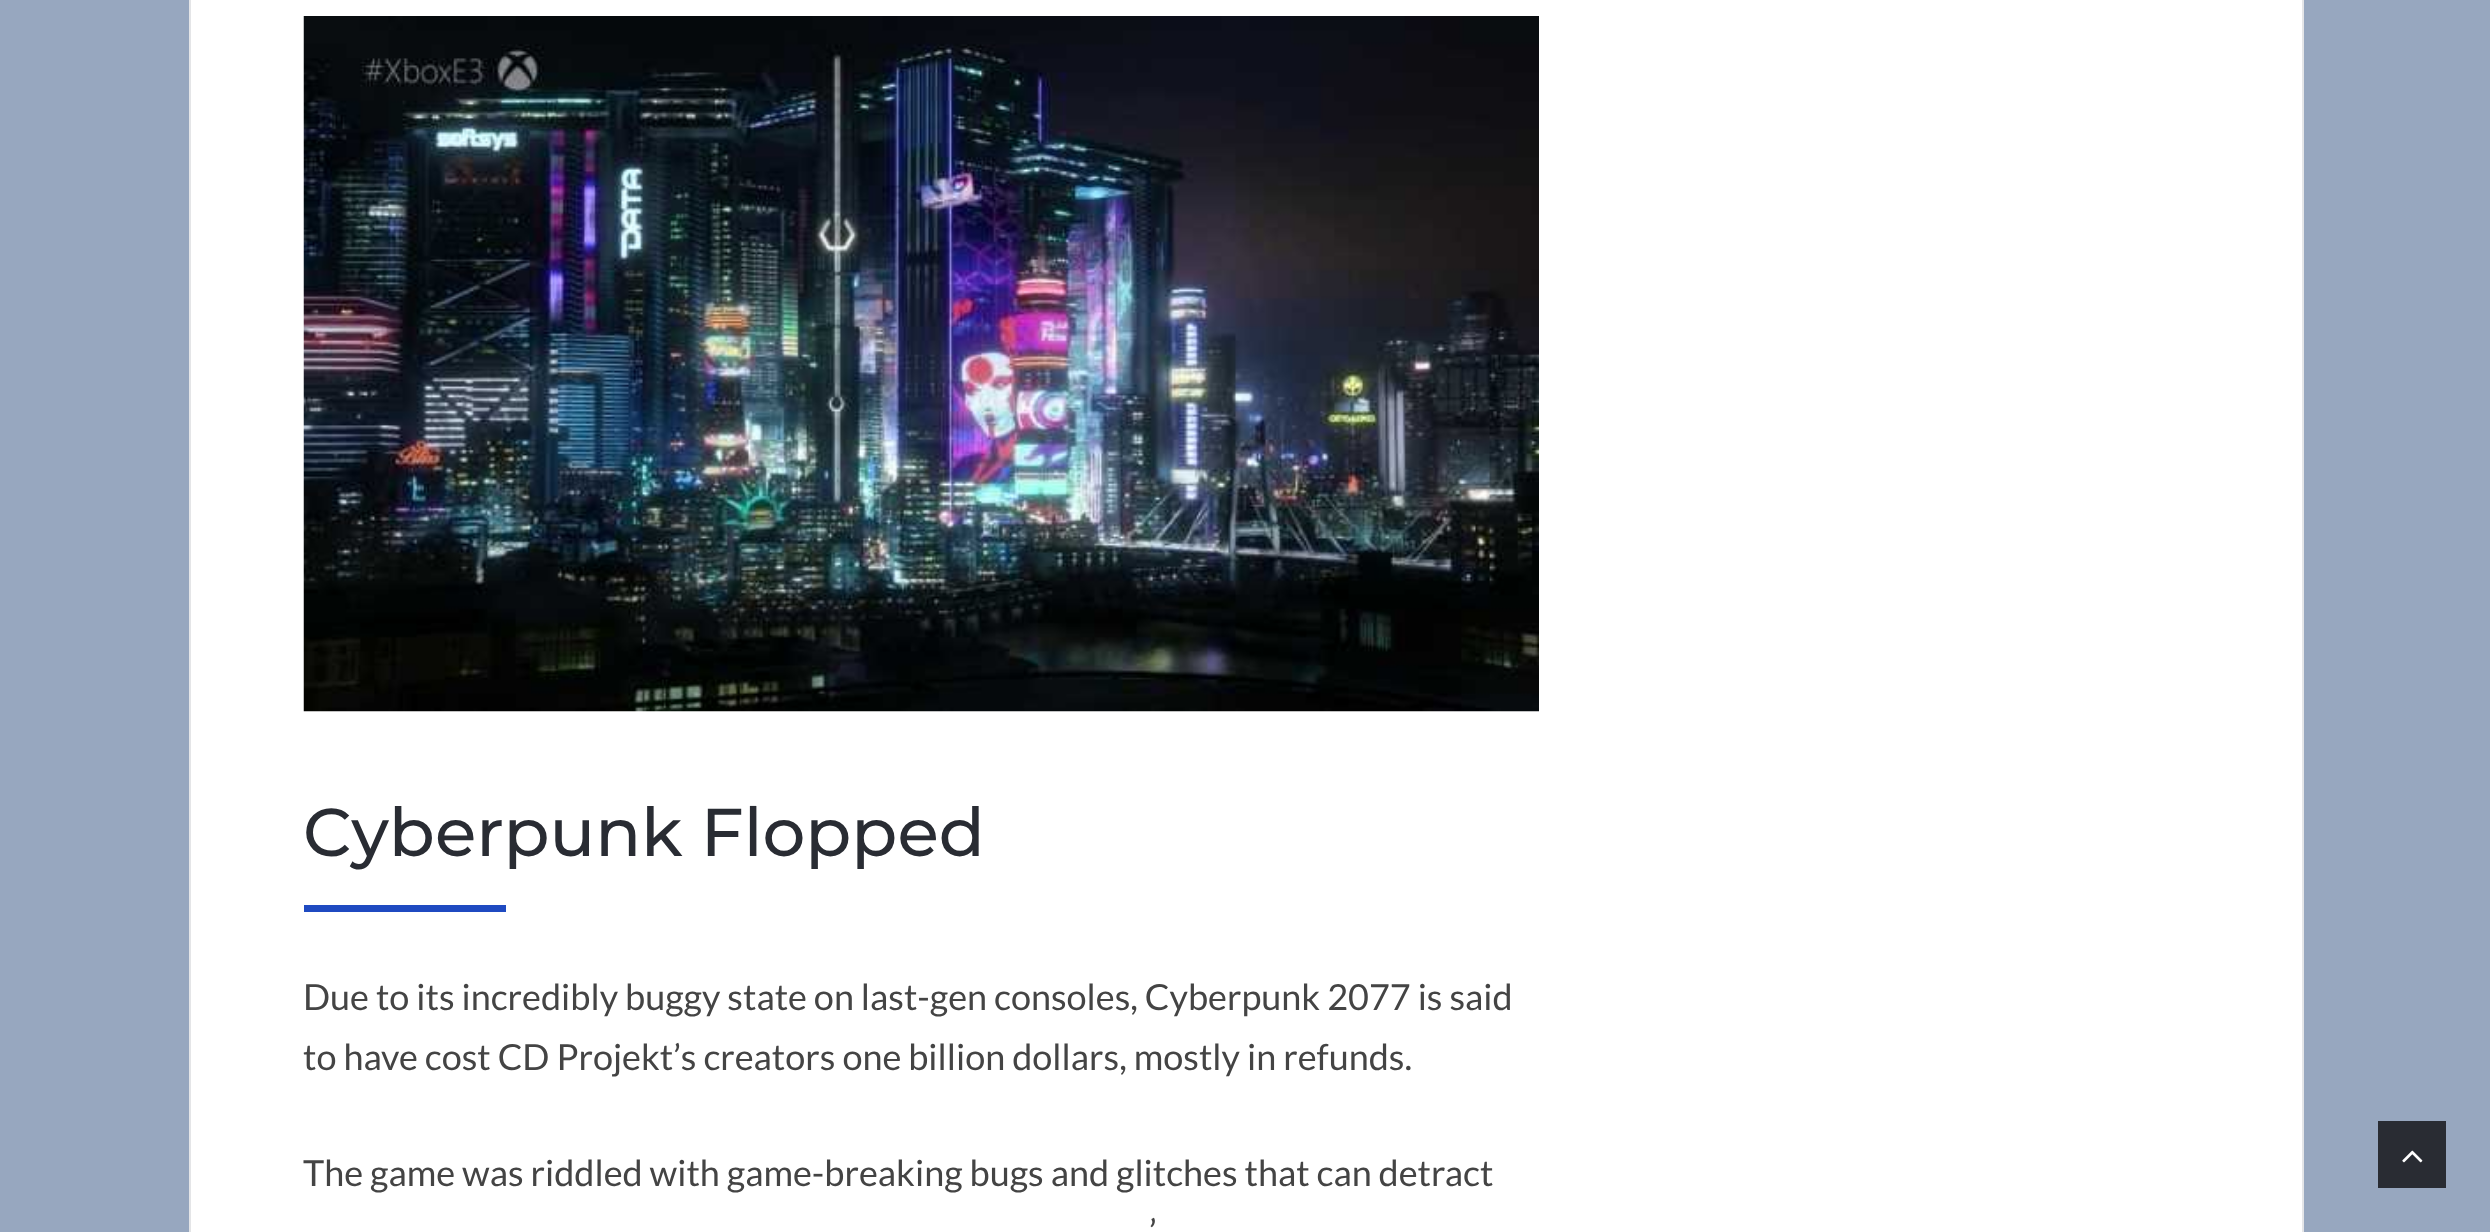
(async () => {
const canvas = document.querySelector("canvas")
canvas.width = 2490
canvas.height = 1232
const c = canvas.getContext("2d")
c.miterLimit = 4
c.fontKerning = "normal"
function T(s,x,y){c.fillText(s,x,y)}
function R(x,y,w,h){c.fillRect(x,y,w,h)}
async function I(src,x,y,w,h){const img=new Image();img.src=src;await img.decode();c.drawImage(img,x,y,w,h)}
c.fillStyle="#97a7bf"
R(0,0,2490,1232)
c.fillStyle="#fff"
c.beginPath()
c.rect(190,-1,2113,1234)
c.fill()
c.strokeStyle="#e4e5e7"
c.lineWidth=2
c.stroke()
await I("1.png",303,16,1236,696)
c.font="500 67.5px Montserrat"
c.fillStyle="#292c33"
T("Cyberpunk Flopped",303,856)
c.fillStyle="#1f4ac1"
R(304,905,202,7)
c.font="36px Lato"
c.fillStyle="#444"
T("Due to its incredibly buggy state on last-gen consoles, Cyberpunk 2077 is said",303,1010)
T("to have cost CD Projekt’s creators one billion dollars, mostly in refunds.",303,1070)
T("The game was riddled with game-breaking bugs and glitches that can detract",303,1186)
T("’",1149,1245)
c.fillStyle="#292c33"
R(2378,1121,68,67)
await I("2.png",2402,1150,21,13)
})()
